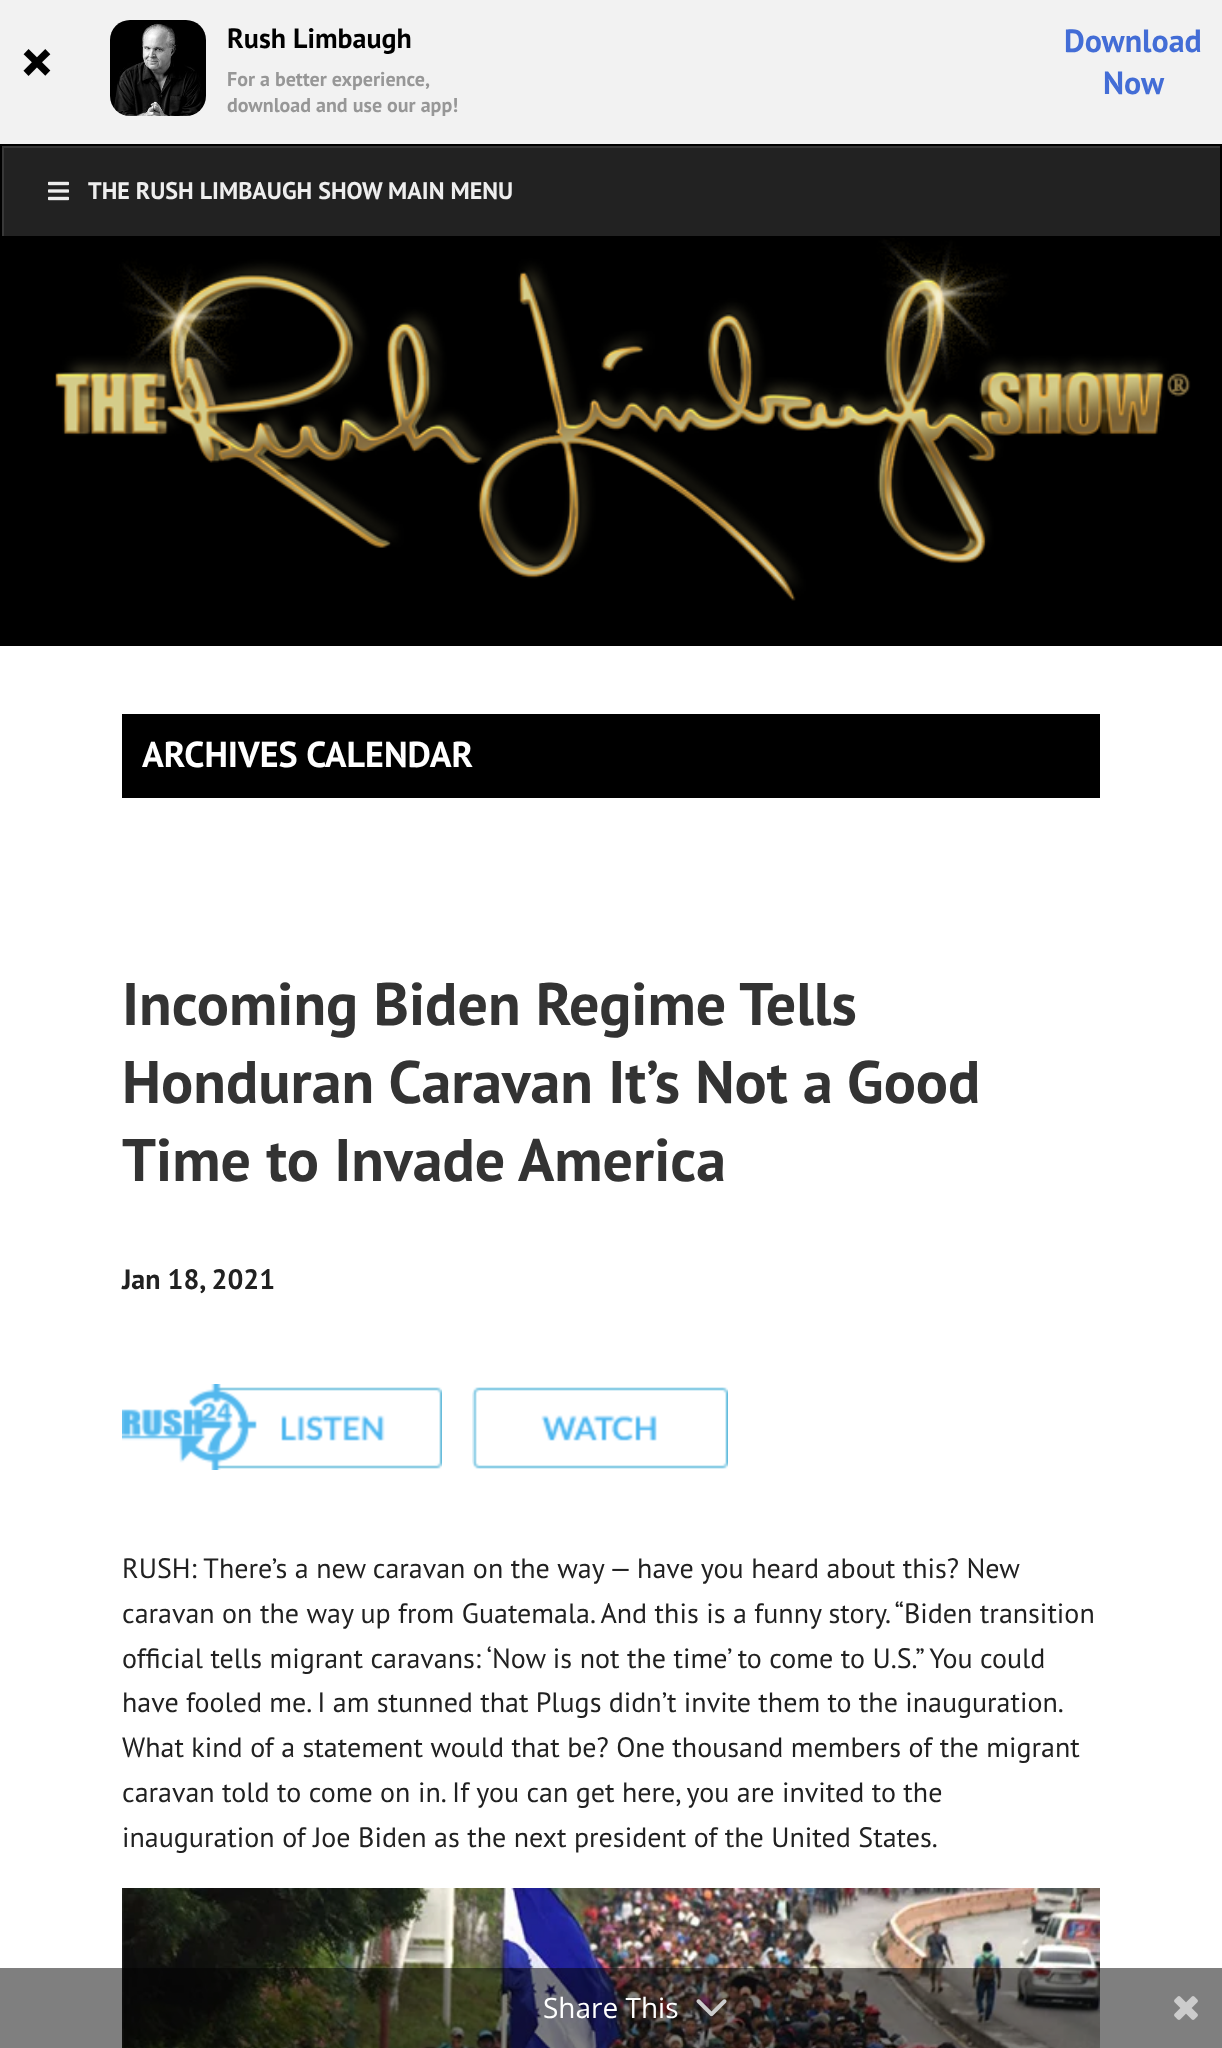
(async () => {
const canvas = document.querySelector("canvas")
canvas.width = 1222
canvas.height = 2048
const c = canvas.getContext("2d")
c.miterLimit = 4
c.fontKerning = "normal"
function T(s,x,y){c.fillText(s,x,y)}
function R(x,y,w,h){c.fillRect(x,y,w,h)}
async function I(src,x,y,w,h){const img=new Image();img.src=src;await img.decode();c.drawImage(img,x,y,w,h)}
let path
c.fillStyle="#fff"
R(0,0,1222,2048)
c.fillStyle="#f2f2f2"
R(0,0,1222,144)
c.font="bold 64px PT Sans"
c.fillStyle="#000"
T("×",20,84)
await I("1.png",110,20,96,96)
c.font="bold 28px PT Sans"
T("Rush Limbaugh",227,48)
c.font="bold 20px PT Sans"
c.fillStyle="#979797"
T("For a better experience,",227,86)
T("download and use our app!",227,112)
c.font="bold 32px PT Sans"
c.fillStyle="#436dd6"
T("Download",1064,52)
T("Now",1103,94)
c.fillStyle="#222"
R(4,148,1216,88)
c.save()
c.beginPath()
c.rect(2,146,1218,90)
c.clip()
c.fillStyle="#383838"
path = new Path2D("M-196-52h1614v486h-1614zm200 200h1218v90h-1218z")
c.fill(path,"evenodd")
c.restore()
c.strokeStyle="#000"
c.lineWidth=2
c.strokeRect(1,145,1220,92)
await I("2.png",48,181,21,20)
c.font="bold 24px PT Sans"
c.fillStyle="#eee"
T("THE RUSH LIMBAUGH SHOW MAIN MENU",88,199)
c.fillStyle="#000"
R(0,238,1222,408)
await I("3.png",55,238,1136,363)
R(122,714,978,84)
c.font="bold 36px PT Sans"
c.fillStyle="#fff"
T("ARCHIVES CALENDAR",142,767)
c.font="bold 60px PT Sans"
c.fillStyle="#333"
T("Incoming Biden Regime Tells",122,1025)
T("Honduran Caravan It’s Not a Good",122,1103)
T("Time to Invade America",122,1181)
c.font="bold 28px PT Sans"
c.fillStyle="#212121"
T("Jan 18, 2021",122,1289)
await I("4.png",122,1384,320,86)
await I("5.png",472,1387,256,82)
c.font="28px PT Sans"
T("RUSH: There’s a new caravan on the way — have you heard about this? New",122,1578)
T("caravan on the way up from Guatemala. And this is a funny story. “Biden transition",122,1623)
T("official tells migrant caravans: ‘Now is not the time’ to come to U.S.” You could",122,1668)
c.wordSpacing="-0.2px"
T("have fooled me. I am stunned that Plugs didn’t invite them to the inauguration.",122,1712)
c.wordSpacing="0px"
T("What kind of a statement would that be? One thousand members of the migrant",122,1757)
T("caravan told to come on in. If you can get here, you are invited to the",122,1802)
T("inauguration of Joe Biden as the next president of the United States.",122,1847)
await I("6.png",122,1888,978,160)
c.fillStyle="#00000080"
R(0,1968,1222,80)
c.font="28px Open Sans"
c.fillStyle="#fff"
T("Share This",543,2018)
await I("7.png",696,1999,31,18)
await I("8.png",1174,1996,24,24)
})()
